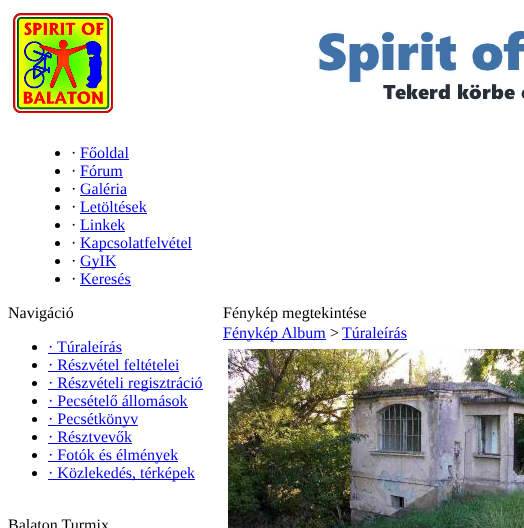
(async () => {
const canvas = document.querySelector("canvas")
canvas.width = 524
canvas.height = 528
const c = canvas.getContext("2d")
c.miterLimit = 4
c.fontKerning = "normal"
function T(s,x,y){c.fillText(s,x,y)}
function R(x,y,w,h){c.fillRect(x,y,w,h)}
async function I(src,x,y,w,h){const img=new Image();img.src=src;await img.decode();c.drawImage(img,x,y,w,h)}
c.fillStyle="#fff"
R(0,0,524,528)
await I("1.png",12,13,101,100)
await I("2.png",317,30,207,70)
c.fillStyle="#000"
c.beginPath()
c.arc(57.5,153.5,2.5,0,7)
c.fill()
c.font="16px Liberation Serif"
T("·",71,158)
c.fillStyle="#00e"
T("Főoldal",80,158)
R(80,159,49,1)
c.fillStyle="#000"
c.beginPath()
c.arc(57.5,171.5,2.5,0,7)
c.fill()
T("·",71,176)
c.fillStyle="#00e"
T("Fórum",80,176)
R(80,177,43,1)
c.fillStyle="#000"
c.beginPath()
c.arc(57.5,189.5,2.5,0,7)
c.fill()
T("·",71,194)
c.fillStyle="#00e"
T("Galéria",80,194)
R(80,195,47,1)
c.fillStyle="#000"
c.beginPath()
c.arc(57.5,207.5,2.5,0,7)
c.fill()
T("·",71,212)
c.fillStyle="#00e"
T("Letöltések",80,212)
R(80,213,67,1)
c.fillStyle="#000"
c.beginPath()
c.arc(57.5,225.5,2.5,0,7)
c.fill()
T("·",71,230)
c.fillStyle="#00e"
T("Linkek",80,230)
R(80,231,45,1)
c.fillStyle="#000"
c.beginPath()
c.arc(57.5,243.5,2.5,0,7)
c.fill()
T("·",71,248)
c.fillStyle="#00e"
R(80,249,112,1)
T("Kapcsolatfelvétel",80,248)
c.fillStyle="#000"
c.beginPath()
c.arc(57.5,261.5,2.5,0,7)
c.fill()
T("·",71,266)
c.fillStyle="#00e"
R(80,267,36,1)
T("GyIK",80,266)
c.fillStyle="#000"
c.beginPath()
c.arc(57.5,279.5,2.5,0,7)
c.fill()
T("·",71,284)
c.fillStyle="#00e"
T("Keresés",80,284)
R(80,285,51,1)
c.fillStyle="#000"
T("Navigáció",8,318)
c.beginPath()
c.arc(34.5,347.5,2.5,0,7)
c.fill()
c.fillStyle="#00e"
T("· Túraleírás",48,352)
R(48,353,74,1)
c.fillStyle="#000"
c.beginPath()
c.arc(34.5,365.5,2.5,0,7)
c.fill()
c.fillStyle="#00e"
T("· Részvétel feltételei",48,370)
R(48,371,131,1)
c.fillStyle="#000"
c.beginPath()
c.arc(34.5,383.5,2.5,0,7)
c.fill()
c.fillStyle="#00e"
R(48,389,155,1)
T("· Részvételi regisztráció",48,388)
c.fillStyle="#000"
c.beginPath()
c.arc(34.5,401.5,2.5,0,7)
c.fill()
c.fillStyle="#00e"
T("· Pecsételő állomások",48,406)
R(48,407,140,1)
c.fillStyle="#000"
c.beginPath()
c.arc(34.5,419.5,2.5,0,7)
c.fill()
c.fillStyle="#00e"
R(48,425,90,1)
T("· Pecsétkönyv",48,424)
c.fillStyle="#000"
c.beginPath()
c.arc(34.5,437.5,2.5,0,7)
c.fill()
c.fillStyle="#00e"
T("· Résztvevők",48,442)
R(48,443,84,1)
c.fillStyle="#000"
c.beginPath()
c.arc(34.5,455.5,2.5,0,7)
c.fill()
c.fillStyle="#00e"
R(48,461,130,1)
T("· Fotók és élmények",48,460)
c.fillStyle="#000"
c.beginPath()
c.arc(34.5,473.5,2.5,0,7)
c.fill()
c.fillStyle="#00e"
R(48,479,147,1)
T("· Közlekedés, térképek",48,478)
c.fillStyle="#000"
T("Balaton Turmix",8,530)
T("Fénykép megtekintése",223,318)
c.fillStyle="#00e"
R(223,339,103,1)
T("Fénykép Album",223,338)
c.fillStyle="#000"
T(">",330,338)
c.fillStyle="#00e"
T("Túraleírás",342,338)
R(342,339,65,1)
await I("3.png",228,349,296,179)
})()
